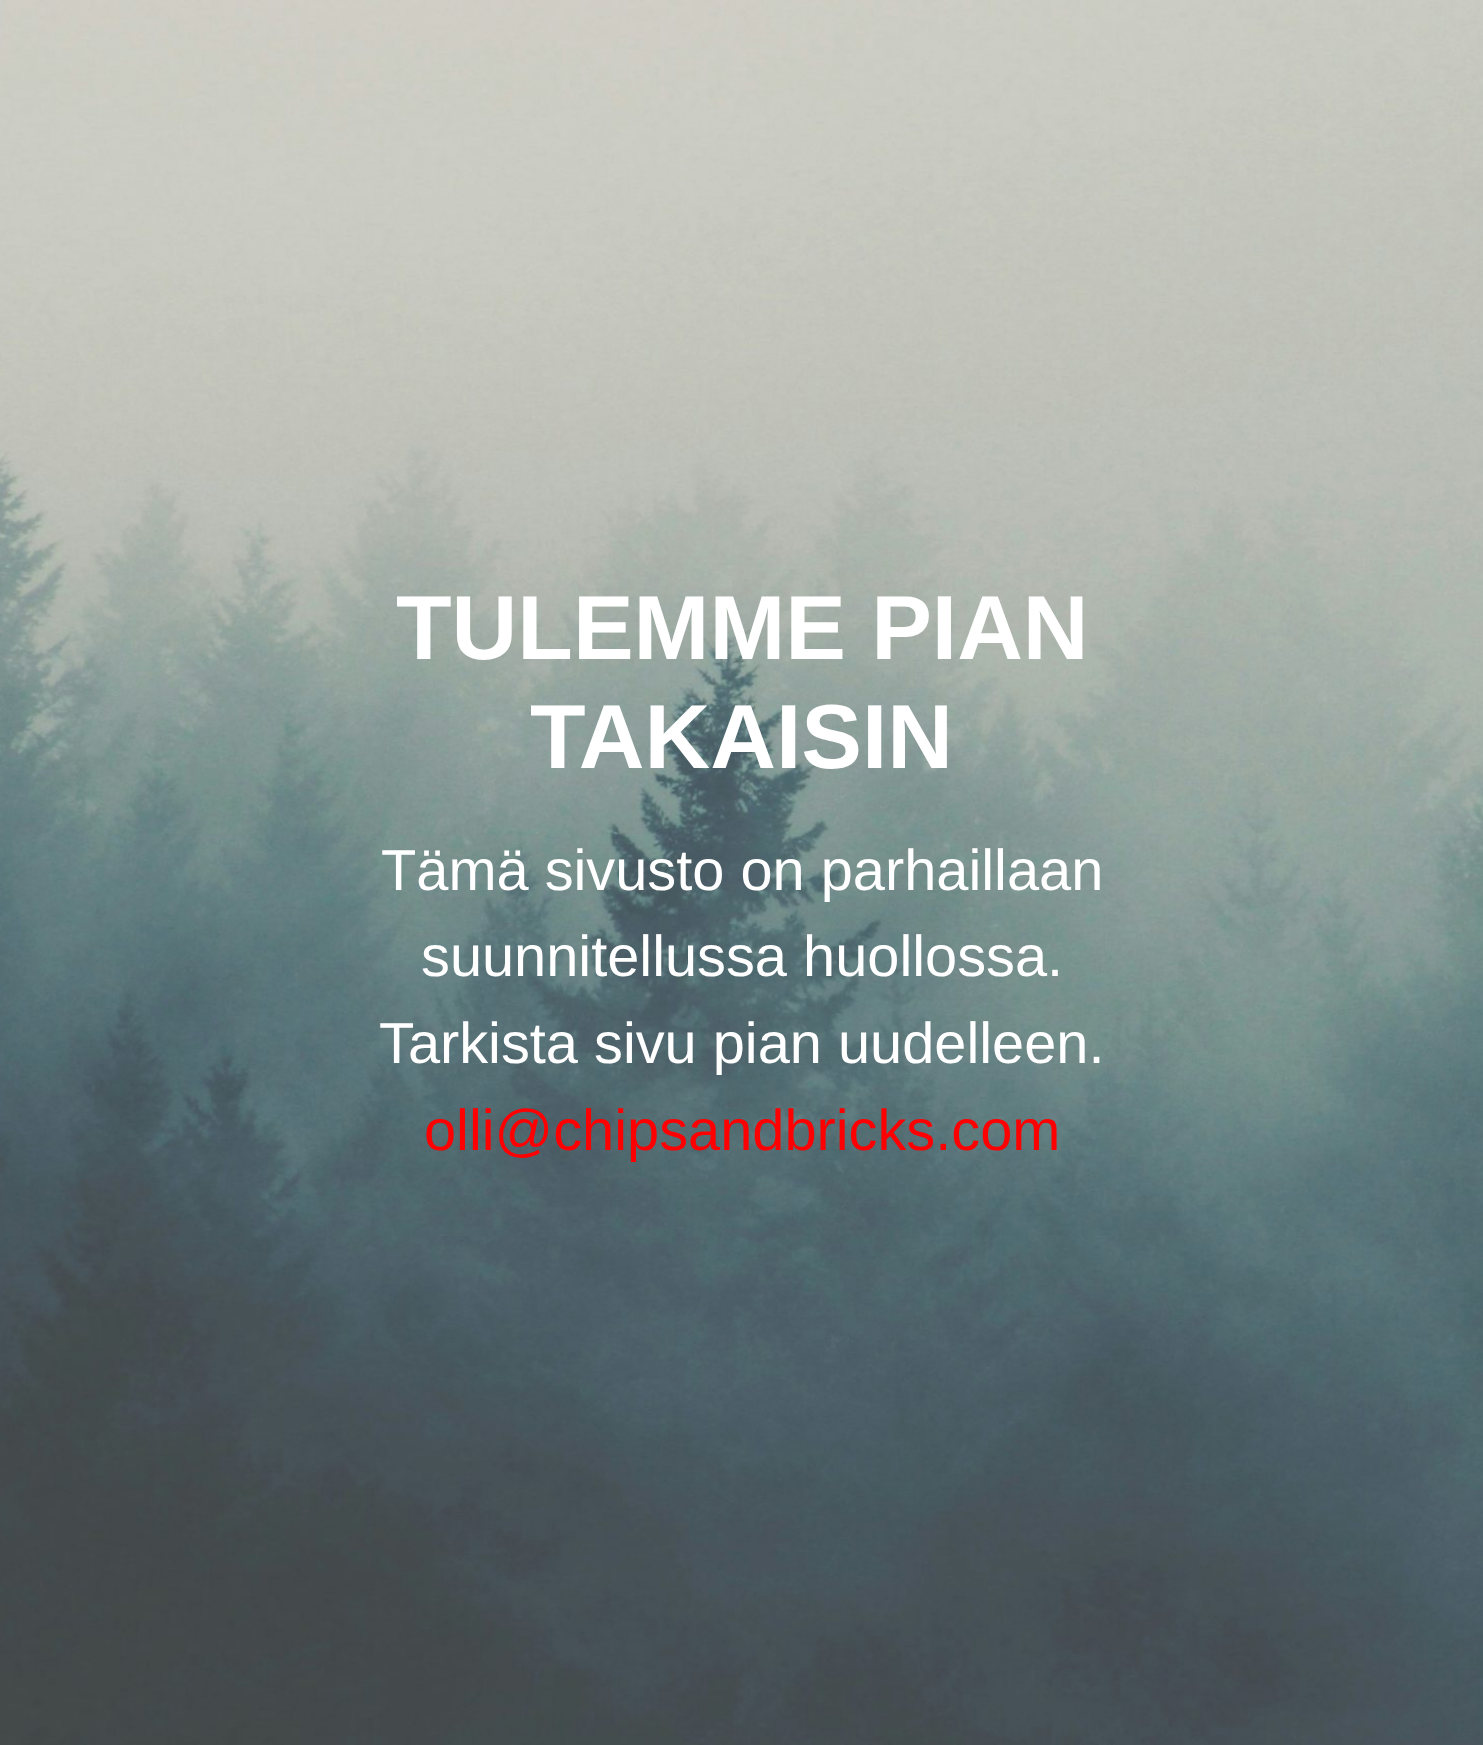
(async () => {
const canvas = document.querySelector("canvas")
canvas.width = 1483
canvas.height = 1745
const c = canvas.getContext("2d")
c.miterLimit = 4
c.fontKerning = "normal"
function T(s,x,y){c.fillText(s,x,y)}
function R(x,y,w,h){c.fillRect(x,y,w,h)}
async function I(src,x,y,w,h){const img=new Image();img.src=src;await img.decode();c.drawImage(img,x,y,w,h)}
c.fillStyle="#fff"
R(0,0,1483,1745)
await I("1.png",0,0,1483,1745)
c.font="bold 91px Liberation Sans"
T("TULEMME PIAN",396,659)
T("TAKAISIN",530,768)
c.font="57.75px Liberation Sans"
T("Tämä sivusto on parhaillaan",381,890)
T("suunnitellussa huollossa.",421,976)
T("Tarkista sivu pian uudelleen.",379,1063)
c.fillStyle="#f00"
T("olli@chipsandbricks.com",424,1150)
})()
